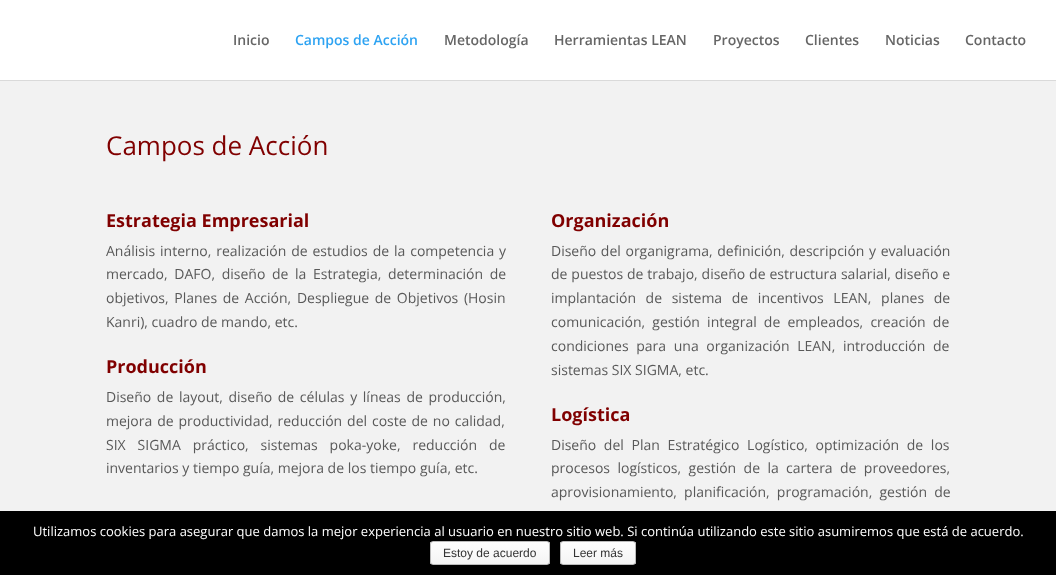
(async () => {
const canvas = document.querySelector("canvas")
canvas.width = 1056
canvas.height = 575
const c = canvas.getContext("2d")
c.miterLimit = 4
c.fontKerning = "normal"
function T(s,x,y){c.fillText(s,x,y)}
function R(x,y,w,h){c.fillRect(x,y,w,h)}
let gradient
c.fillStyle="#f2f2f2"
R(0,0,1056,575)
c.fillStyle="#dadada"
R(0,80,1056,1)
c.fillStyle="#fff"
R(0,0,1056,80)
c.font="600 14px Open Sans"
c.fillStyle="#666"
T("Inicio",233,45)
c.fillStyle="#2ea3f2"
T("Campos de Acción",295,45)
c.fillStyle="#666"
T("Metodología",444,45)
T("Herramientas LEAN",554,45)
T("Proyectos",713,45)
T("Clientes",805,45)
T("Noticias",885,45)
T("Contacto",965,45)
c.font="26px Open Sans"
c.fillStyle="#800000"
T("Campos de Acción",106,155)
c.font="bold 18px Open Sans"
T("Estrategia Empresarial",106,227)
c.wordSpacing="1.25px"
c.font="14px Open Sans"
c.fillStyle="#595959"
T("Análisis interno, realización de estudios de la competencia y",106,256)
c.wordSpacing="3px"
T("mercado, DAFO, diseño de la Estrategia, determinación de",106,279)
c.wordSpacing="2px"
T("objetivos, Planes de Acción, Despliegue de Objetivos (Hosin",106,303)
c.wordSpacing="0px"
T("Kanri), cuadro de mando, etc.",106,327)
c.font="bold 18px Open Sans"
c.fillStyle="#800000"
T("Producción",106,373)
c.wordSpacing="2px"
c.font="14px Open Sans"
c.fillStyle="#595959"
T("Diseño de layout, diseño de células y líneas de producción,",106,402)
c.wordSpacing="1.25px"
T("mejora de productividad, reducción del coste de no calidad,",106,426)
c.wordSpacing="8.25px"
T("SIX SIGMA práctico, sistemas poka-yoke, reducción de",106,450)
c.wordSpacing="0px"
T("inventarios y tiempo guía, mejora de los tiempo guía, etc.",106,473)
c.font="bold 18px Open Sans"
c.fillStyle="#800000"
T("Organización",551,227)
c.wordSpacing="1px"
c.font="14px Open Sans"
c.fillStyle="#595959"
T("Diseño del organigrama, definición, descripción y evaluación",551,256)
c.wordSpacing="0.25px"
T("de puestos de trabajo, diseño de estructura salarial, diseño e",551,279)
c.wordSpacing="6px"
T("implantación de sistema de incentivos LEAN, planes de",551,303)
c.wordSpacing="3.5px"
T("comunicación, gestión integral de empleados, creación de",551,327)
c.wordSpacing="4px"
T("condiciones para una organización LEAN, introducción de",551,351)
c.wordSpacing="0px"
T("sistemas SIX SIGMA, etc.",551,375)
c.font="bold 18px Open Sans"
c.fillStyle="#800000"
T("Logística",551,421)
c.wordSpacing="4px"
c.font="14px Open Sans"
c.fillStyle="#595959"
T("Diseño del Plan Estratégico Logístico, optimización de los",551,450)
c.wordSpacing="3.75px"
T("procesos logísticos, gestión de la cartera de proveedores,",551,473)
c.wordSpacing="3.5px"
T("aprovisionamiento, planificación, programación, gestión de",551,497)
c.fillStyle="#000"
R(0,511,1056,64)
c.wordSpacing="0px"
c.font="13px Open Sans"
c.fillStyle="#fff"
T("Utilizamos cookies para asegurar que damos la mejor experiencia al usuario en nuestro sitio web. Si continúa utilizando este sitio asumiremos que está de acuerdo.",33,536)
c.save()
c.beginPath()
c.roundRect(430,541,120,24,3)
c.clip()
gradient = c.createLinearGradient(490,542,490,564)
gradient.addColorStop(0,"#fefefe")
gradient.addColorStop(1,"#f4f4f4")
c.fillStyle = gradient
R(430,542,120,22)
c.restore()
c.beginPath()
c.roundRect(430.5,541.5,119,23,2.5)
c.strokeStyle="#bbb"
c.stroke()
c.font="12px Liberation Sans"
c.fillStyle="#333"
T("Estoy de acuerdo",443,557)
c.save()
c.beginPath()
c.roundRect(560,541,76,24,3)
c.clip()
gradient = c.createLinearGradient(598,542,598,564)
gradient.addColorStop(0,"#fefefe")
gradient.addColorStop(1,"#f4f4f4")
c.fillStyle = gradient
R(560,542,76,22)
c.restore()
c.beginPath()
c.roundRect(560.5,541.5,75,23,2.5)
c.stroke()
T("Leer más",573,557)
})()
